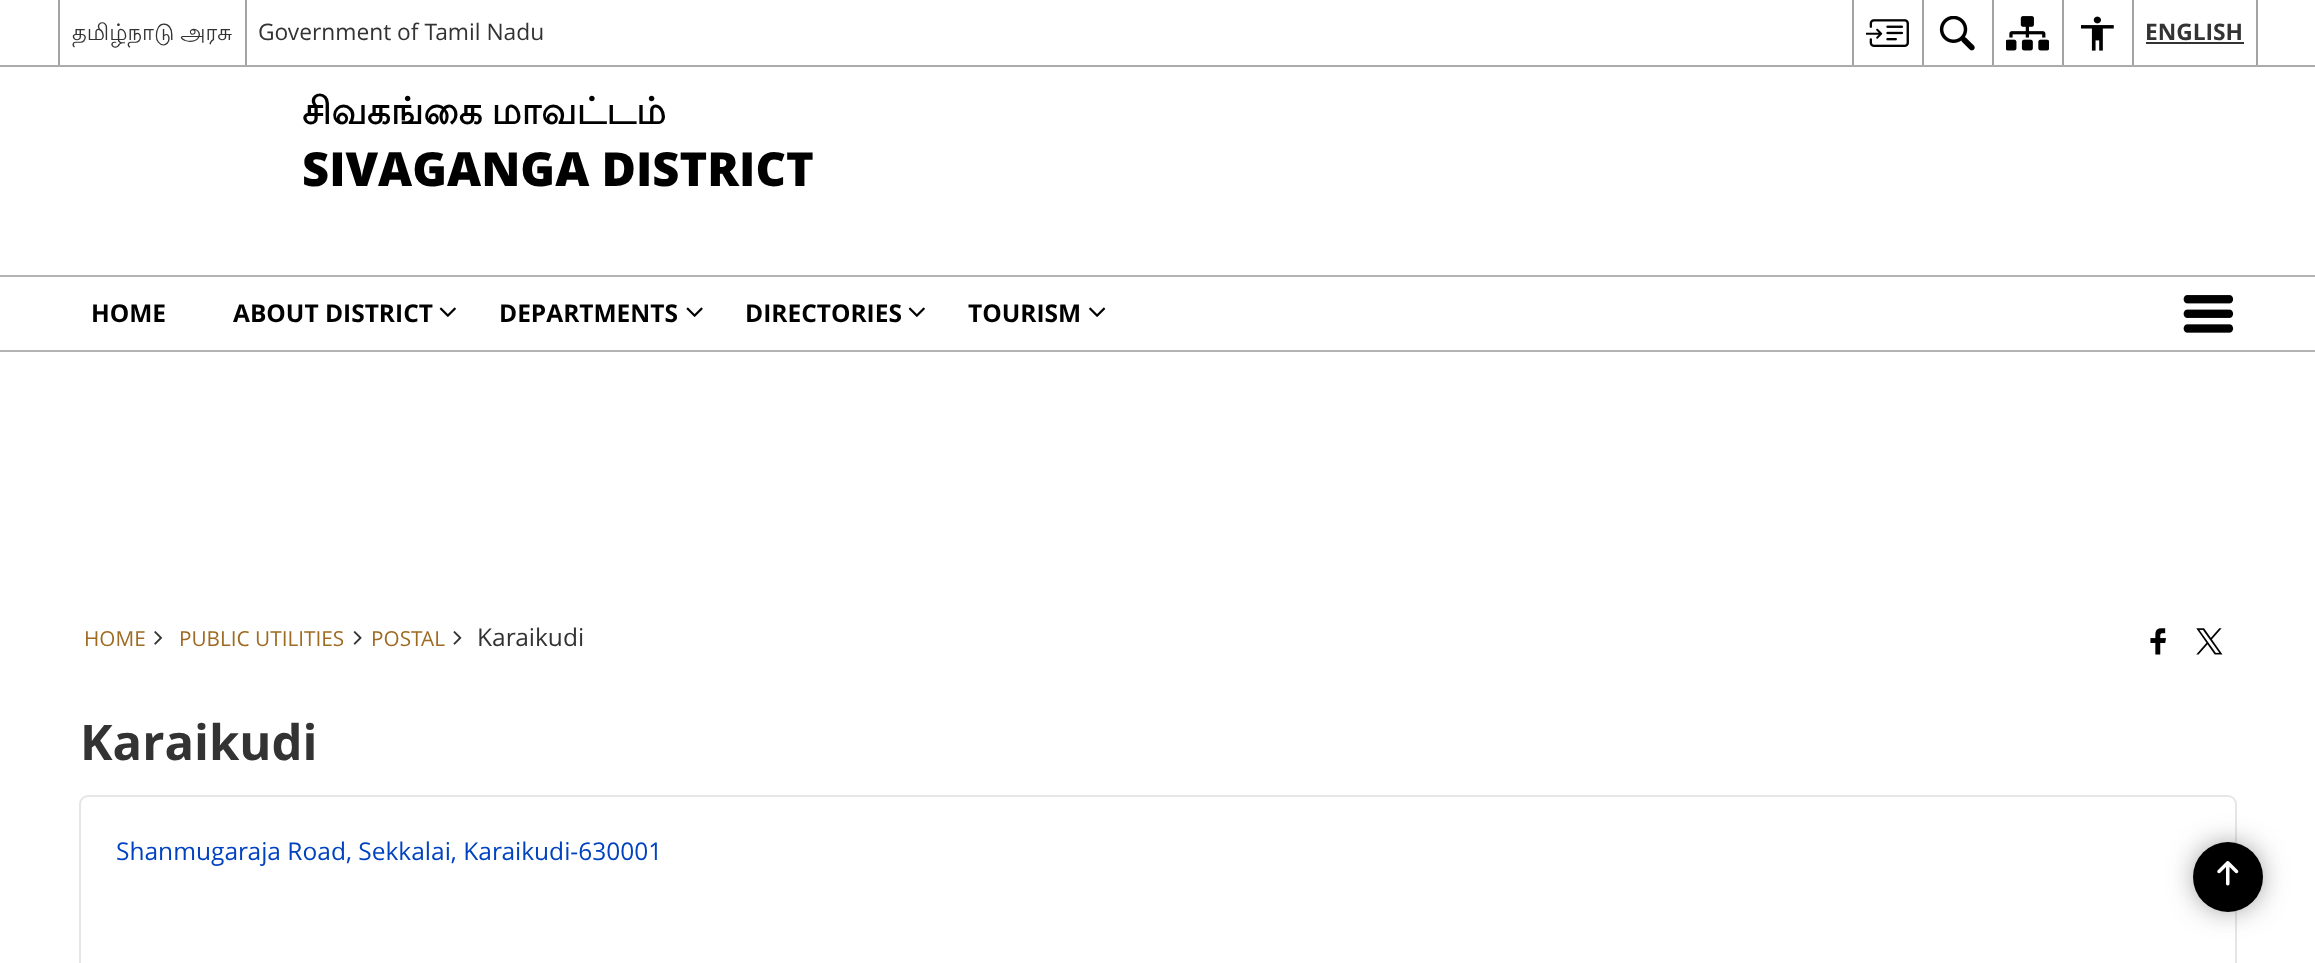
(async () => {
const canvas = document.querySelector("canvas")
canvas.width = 2315
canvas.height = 963
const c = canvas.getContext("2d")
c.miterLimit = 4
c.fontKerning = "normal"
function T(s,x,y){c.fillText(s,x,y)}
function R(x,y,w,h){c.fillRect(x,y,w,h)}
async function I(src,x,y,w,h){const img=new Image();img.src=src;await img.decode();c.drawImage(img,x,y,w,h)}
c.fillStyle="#fff"
R(0,0,2315,963)
c.fillStyle="#ababab"
R(0,65,2315,2)
c.fillStyle="#a3a3a3"
R(58,0,2,65)
c.wordSpacing="-1px"
c.font="22.75px Lohit Tamil"
c.fillStyle="#333"
T("தமிழ்நாடு அரசு",72,40)
c.fillStyle="#a3a3a3"
R(245,0,2,65)
c.wordSpacing="0px"
c.font="22.75px Open Sans"
c.fillStyle="#333"
T("Government of Tamil Nadu",258,40)
c.fillStyle="#a3a3a3"
R(1852,0,2,65)
await I("1.png",1866,19,43,28)
R(1922,0,2,65)
await I("2.png",1939,16,36,35)
R(1992,0,2,65)
await I("3.png",2006,16,43,35)
R(2062,0,2,65)
await I("4.png",2081,16,33,35)
R(2256,0,2,65)
R(2132,0,2,65)
c.font="bold 22.75px Open Sans"
c.fillStyle="#333"
T("ENGLISH",2145,40)
R(2146,42,98,2)
c.wordSpacing="-2px"
c.font="bold 37.25px Lohit Tamil"
c.fillStyle="#000"
T("சிவகங்கை மாவட்டம்",302,124)
c.wordSpacing="0px"
c.font="800 47px Open Sans"
T("SIVAGANGA DISTRICT",302,186)
c.fillStyle="#b3b3b3"
R(0,275,2315,2)
R(0,350,2315,2)
c.font="bold 24.5px Open Sans"
c.fillStyle="#000"
T("HOME",91,322)
T("ABOUT DISTRICT",233,322)
await I("5.png",439,307,17,10)
T("DEPARTMENTS",499,322)
await I("6.png",686,307,17,10)
T("DIRECTORIES",745,322)
await I("5.png",908,307,17,10)
T("TOURISM",968,322)
await I("7.png",1089,307,17,10)
await I("8.png",2183,295,51,38)
c.font="20.75px Open Sans"
c.fillStyle="#9e6b22"
T("HOME",84,646)
await I("9.png",154,631,9,14)
T("PUBLIC UTILITIES",179,646)
await I("10.png",353,631,9,14)
T("POSTAL",371,646)
await I("11.png",453,631,9,14)
c.font="24.5px Open Sans"
c.fillStyle="#333"
T("Karaikudi",477,646)
await I("12.png",2150,628,16,27)
await I("13.png",2196,628,27,27)
c.font="bold 49px Open Sans"
T("Karaikudi",80,760)
c.beginPath()
c.roundRect(80,796,2156,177,8)
c.strokeStyle="#e6e6e6"
c.lineWidth=2
c.stroke()
c.font="24.5px Open Sans"
c.fillStyle="#0042bf"
T("Shanmugaraja Road, Sekkalai, Karaikudi-630001",116,860)
c.fillStyle="#3c3c3c"
c.filter="blur(16.5px)"
c.beginPath()
c.roundRect(2202,851,52,52,26)
c.fill()
c.filter="none"
c.fillStyle="#000"
c.beginPath()
c.arc(2228,877,35,0,7)
c.fill()
await I("14.png",2217,861,22,25)
})()
